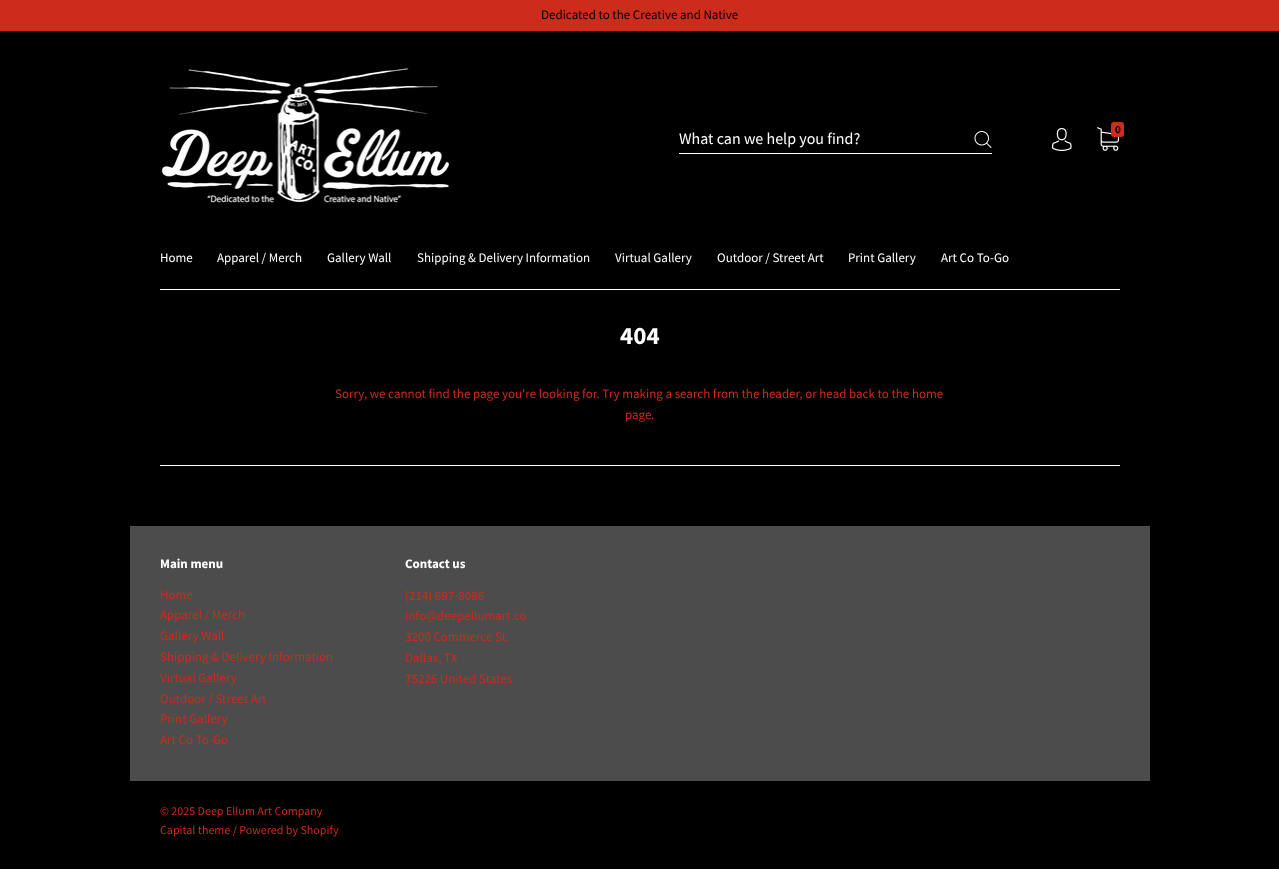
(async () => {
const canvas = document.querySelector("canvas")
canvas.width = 1279
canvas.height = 869
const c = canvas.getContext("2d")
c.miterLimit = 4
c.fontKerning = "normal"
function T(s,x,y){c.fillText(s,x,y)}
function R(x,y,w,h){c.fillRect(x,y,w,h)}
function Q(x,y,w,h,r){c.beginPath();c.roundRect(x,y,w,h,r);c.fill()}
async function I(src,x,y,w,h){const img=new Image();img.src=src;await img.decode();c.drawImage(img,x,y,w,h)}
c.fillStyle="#000"
R(0,0,1279,869)
c.fillStyle="#cd2c1c"
R(0,0,1279,31)
c.font="13px Source Sans Pro"
c.fillStyle="#000"
T("Dedicated to the Creative and Native",541,19)
await I("1.png",161,68,288,135)
await I("2.png",1052,128,20,23)
await I("3.png",1097,127,22,24)
c.fillStyle="#cd2c1c"
Q(1111,122,13,15,3)
c.font="bold 11px Source Sans Pro"
c.fillStyle="#000"
T("0",1115,133)
c.fillStyle="#fff"
R(679,153,313,1)
c.font="16px Source Sans Pro"
T("What can we help you find?",679,144)
await I("4.png",974,131,18,17)
c.font="13px Source Sans Pro"
T("Home",160,262)
T("Apparel / Merch",217,262)
T("Gallery Wall",327,262)
T("Shipping & Delivery Information",417,262)
T("Virtual Gallery",615,262)
T("Outdoor / Street Art",717,262)
T("Print Gallery",848,262)
T("Art Co To-Go",941,262)
R(160,289,960,1)
c.font="bold 25px Source Sans Pro"
T("404",620,344)
c.font="13px Source Sans Pro"
c.fillStyle="#cc2c1d"
T("Sorry, we cannot find the page you're looking for. Try making a search from the header, or head",335,398)
T("back to the home",849,398)
T("page",625,419)
T(".",651,419)
c.fillStyle="#fff"
R(160,465,960,1)
c.fillStyle="#4c4c4c"
R(130,526,1020,255)
c.font="bold 13px Source Sans Pro"
c.fillStyle="#fff"
T("Main menu",160,568)
c.font="13px Source Sans Pro"
c.fillStyle="#cc2c1d"
T("Home",160,599)
T("Apparel / Merch",160,619)
T("Gallery Wall",160,640)
T("Shipping & Delivery Information",160,661)
T("Virtual Gallery",160,682)
T("Outdoor / Street Art",160,703)
T("Print Gallery",160,723)
T("Art Co To-Go",160,744)
c.font="bold 13px Source Sans Pro"
c.fillStyle="#fff"
T("Contact us",405,568)
c.font="13px Source Sans Pro"
c.fillStyle="#cc2c1d"
T("(214) 697-8086",405,600)
T("info@deepellumart.co",405,620)
T("3200 Commerce St.",405,641)
T("Dallas, TX",405,662)
T("75226 United States",405,683)
c.font="12px Source Sans Pro"
T("© 2025 Deep Ellum Art Company",160,815)
T("Capital theme / Powered by Shopify",160,834)
})()
